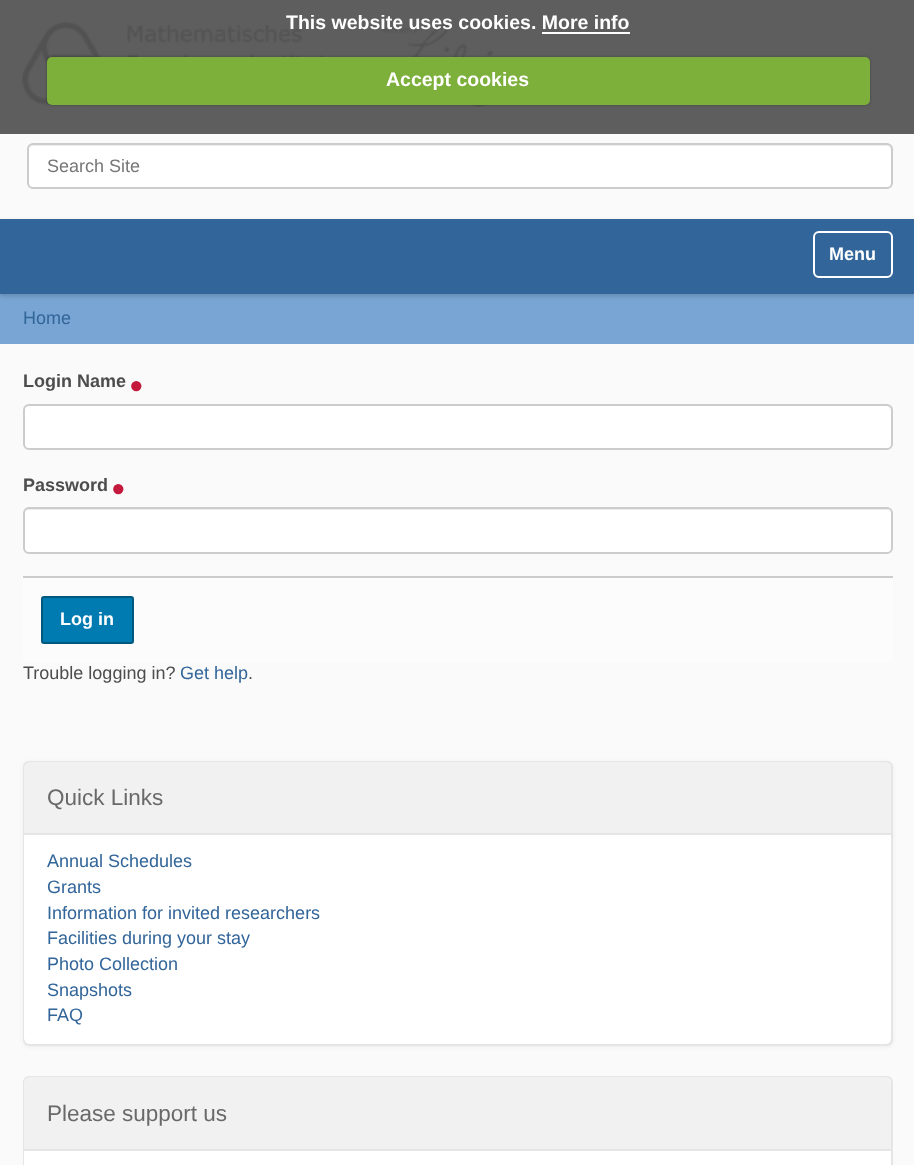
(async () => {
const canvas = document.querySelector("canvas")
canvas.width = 914
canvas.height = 1165
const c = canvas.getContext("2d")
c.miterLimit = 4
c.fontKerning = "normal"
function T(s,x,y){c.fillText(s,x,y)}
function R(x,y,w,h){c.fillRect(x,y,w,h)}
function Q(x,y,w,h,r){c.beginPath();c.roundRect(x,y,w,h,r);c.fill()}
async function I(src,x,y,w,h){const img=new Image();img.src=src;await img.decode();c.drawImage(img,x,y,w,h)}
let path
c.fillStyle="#fafafa"
R(0,0,914,1165)
c.fillStyle="#5e5e5e"
R(0,0,914,134)
await I("1.png",22,22,472,85)
c.font="bold 19.5px Liberation Sans"
c.fillStyle="#fff"
T("This website uses cookies. More info",286,29)
R(542,32,88,2)
c.fillStyle="#00000040"
c.filter="blur(1.5px)"
c.beginPath()
c.roundRect(47,57,823,48,5)
c.fill()
c.filter="none"
c.fillStyle="#7daf3b"
Q(47,57,823,48,5)
c.fillStyle="#fff"
T("Accept cookies",386,86)
Q(27,143,866,46,6)
c.fillStyle="#ececec"
path = new Path2D("M33 146h853c3 0 5 2 5 4v-1c0-3-2-5-5-5h-852c-2 0-4 2-5 4c1-1 3-2 4-2z")
c.fill(path)
c.beginPath()
c.roundRect(28,144,864,44,5)
c.strokeStyle="#ccc"
c.lineWidth=2
c.stroke()
c.font="18px Liberation Sans"
c.fillStyle="#777"
T("Search Site",47,172)
c.fillStyle="#78a5d3"
R(0,294,914,50)
c.fillStyle="#0000002b"
c.filter="blur(2px)"
c.beginPath()
c.rect(0,221,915,75)
c.fill()
c.filter="none"
c.fillStyle="#326599"
R(0,219,914,75)
c.beginPath()
c.roundRect(814,232,78,45,5)
c.strokeStyle="#fff"
c.stroke()
c.font="bold 18px Liberation Sans"
c.fillStyle="#fff"
T("Menu",829,260)
c.font="18px Liberation Sans"
c.fillStyle="#326599"
T("Home",23,324)
c.font="bold 18px Liberation Sans"
c.fillStyle="#4d4d4d"
T("Login Name",23,387)
c.font="bold 36px Liberation Sans"
c.fillStyle="#c4183c"
T("•",130,398)
c.fillStyle="#fff"
Q(23,404,870,46,6)
c.fillStyle="#ececec"
path = new Path2D("M28 406h858c3 0 5 3 5 5v-1c0-3-2-5-5-5h-857c-3 0-5 2-5 5v1c0-2 2-5 4-5z")
c.fill(path)
c.beginPath()
c.roundRect(24,405,868,44,5)
c.strokeStyle="#ccc"
c.stroke()
c.font="bold 18px Liberation Sans"
c.fillStyle="#4d4d4d"
T("Password",23,491)
c.font="bold 36px Liberation Sans"
c.fillStyle="#c4183c"
T("•",112,501)
c.fillStyle="#fff"
Q(23,507,870,47,6)
c.fillStyle="#ececec"
path = new Path2D("M28 510h858c3 0 5 2 5 4c0-3-2-5-5-5h-857c-3 0-5 2-5 5c0-2 2-4 4-4z")
c.fill(path)
c.beginPath()
c.roundRect(24,508,868,45,5)
c.stroke()
c.fillStyle="#fcfcfd"
R(23,578,870,84)
c.fillStyle="#ccc"
R(23,576,870,2)
c.fillStyle="#007bb1"
c.beginPath()
c.roundRect(42,597,91,46,2)
c.fill()
c.strokeStyle="#00587e"
c.stroke()
c.font="bold 18px Liberation Sans"
c.fillStyle="#fff"
T("Log in",60,625)
c.font="18px Liberation Sans"
c.fillStyle="#4d4d4d"
T("Trouble logging in?",23,679)
c.fillStyle="#326599"
T("Get help",180,679)
c.fillStyle="#4d4d4d"
T(".",248,679)
c.fillStyle="#0000000d"
c.filter="blur(2px)"
c.beginPath()
c.roundRect(23,762,870,285,6)
c.fill()
c.filter="none"
c.beginPath()
c.roundRect(24,762,868,283,5)
c.strokeStyle="#e5e5e5"
c.stroke()
c.fillStyle="#f2f1f1"
c.beginPath()
c.roundRect(24,762,867,71,[6,6,0,0])
c.fill()
c.font="22.5px Liberation Sans"
c.fillStyle="#696969"
T("Quick Links",47,805)
c.fillStyle="#fff"
c.beginPath()
c.roundRect(24,833,867,211,[0,0,6,6])
c.fill()
c.fillStyle="#e5e5e5"
R(24,833,867,2)
c.font="18px Liberation Sans"
c.fillStyle="#326599"
T("Annual Schedules",47,867)
T("Grants",47,893)
T("Information for invited researchers",47,919)
T("Facilities during your stay",47,944)
T("Photo Collection",47,970)
T("Snapshots",47,996)
T("FAQ",47,1021)
c.beginPath()
c.roundRect(24,1077,868,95,5)
c.stroke()
c.fillStyle="#f2f1f1"
c.beginPath()
c.roundRect(24,1077,867,72,[6,6,0,0])
c.fill()
c.font="22.5px Liberation Sans"
c.fillStyle="#696969"
T("Please support us",47,1121)
c.fillStyle="#fff"
R(24,1151,867,14)
c.fillStyle="#e5e5e5"
R(24,1149,867,2)
})()
